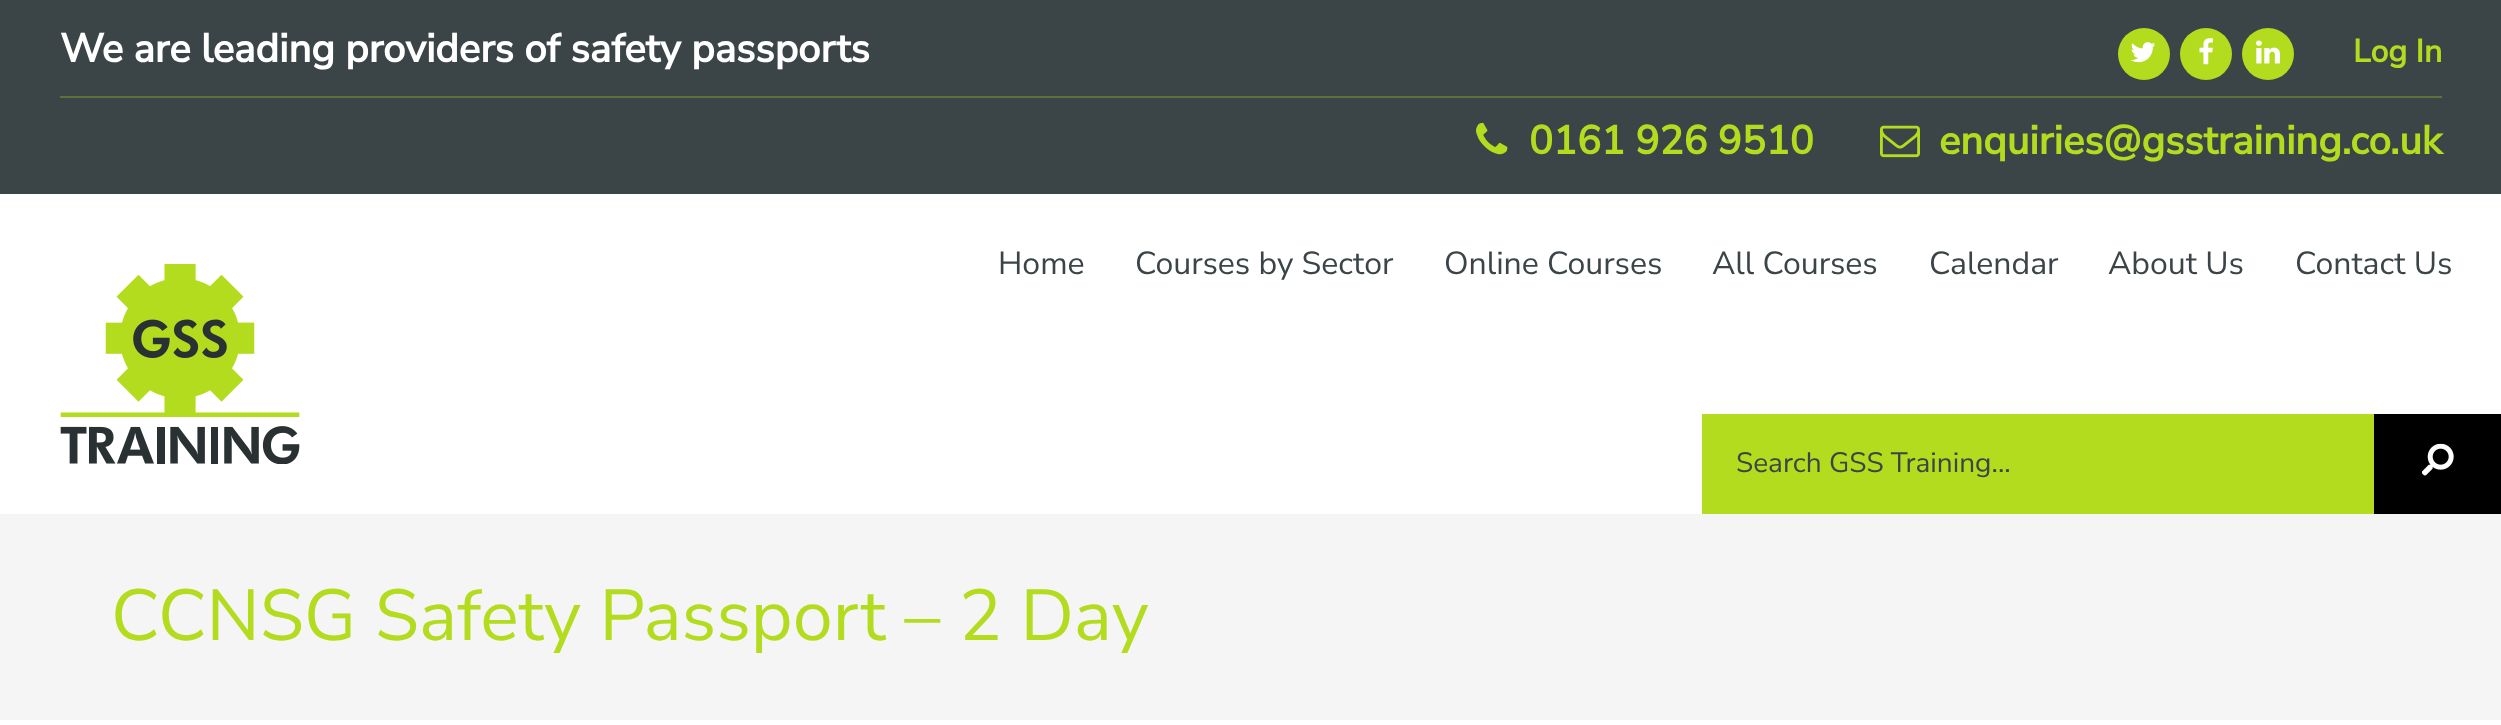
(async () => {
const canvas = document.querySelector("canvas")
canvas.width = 2501
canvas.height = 725
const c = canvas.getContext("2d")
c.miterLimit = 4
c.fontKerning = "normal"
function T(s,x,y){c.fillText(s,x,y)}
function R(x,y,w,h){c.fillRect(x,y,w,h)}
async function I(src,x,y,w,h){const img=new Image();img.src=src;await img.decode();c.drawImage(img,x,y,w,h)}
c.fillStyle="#fff"
R(0,0,2501,725)
c.fillStyle="#3b4548"
R(0,0,2501,194)
c.fillStyle="#5f723c"
R(60,96,2382,2)
c.font="bold 40px Nunito Sans"
c.fillStyle="#fff"
T("We are leading providers of safety passports",60,62)
c.fillStyle="#b3dc1f"
c.beginPath()
c.arc(2144,54,26,0,7)
c.fill()
await I("1.png",2131,42,25,21)
c.beginPath()
c.arc(2206,54,26,0,7)
c.fill()
await I("2.png",2199,38,14,27)
c.beginPath()
c.arc(2268,54,26,0,7)
c.fill()
await I("3.png",2256,40,24,24)
c.font="bold 32px Nunito Sans"
T("Log In",2353,62)
await I("4.png",1476,122,32,33)
c.font="bold 40px Nunito Sans"
T("0161 926 9510",1529,154)
await I("5.png",1880,125,40,33)
T("enquiries@gsstraining.co.uk",1939,154)
await I("6.png",60,264,240,200)
c.font="32px Nunito Sans"
c.fillStyle="#3b4548"
T("Home",998,274)
T("Courses by Sector",1135,274)
T("Online Courses",1444,274)
T("All Courses",1712,274)
T("Calendar",1929,274)
T("About Us",2108,274)
T("Contact Us",2295,274)
c.fillStyle="#b3dc1f"
R(1702,414,672,100)
c.font="28px Nunito Sans"
c.fillStyle="#3b4548"
T("Search GSS Training...",1736,472)
c.fillStyle="#000"
R(2374,414,127,100)
await I("7.png",2422,443,32,33)
c.fillStyle="#f5f5f5"
R(0,514,2501,206)
c.font="72px Nunito Sans"
c.fillStyle="#b3dc1f"
T("CCNSG Safety Passport – 2 Day",111,640)
})()
